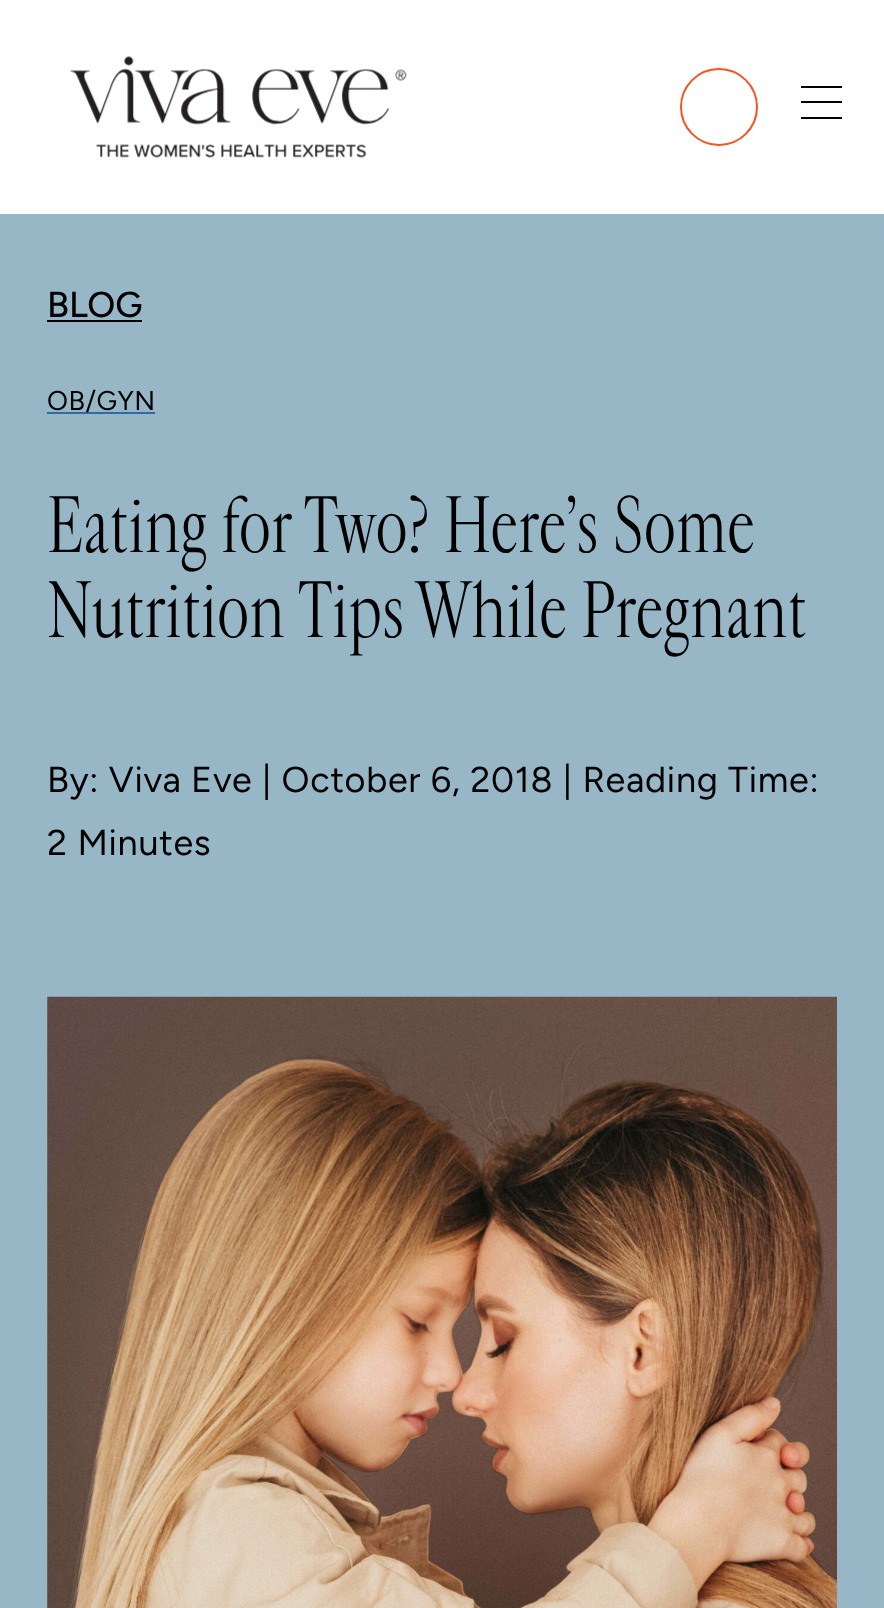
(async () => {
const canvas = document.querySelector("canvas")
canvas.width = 884
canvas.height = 1608
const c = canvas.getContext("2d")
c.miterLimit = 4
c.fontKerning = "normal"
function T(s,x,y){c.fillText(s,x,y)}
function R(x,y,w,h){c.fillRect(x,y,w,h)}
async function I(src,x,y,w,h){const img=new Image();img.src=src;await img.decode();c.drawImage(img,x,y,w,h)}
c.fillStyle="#97b7c6"
R(0,0,884,1608)
c.fillStyle="#fff"
R(0,0,884,214)
await I("1.png",70,56,337,102)
c.beginPath()
c.arc(719,107,38,0,7)
c.strokeStyle="#f9521d"
c.lineWidth=2
c.stroke()
c.fillStyle="#000"
R(801,101,41,2)
R(801,86,41,2)
R(801,117,41,2)
c.font="500 36px Figtree"
T("BLOG",47,317)
R(47,320,95,2)
c.fillStyle="#326ba4"
R(47,412,108,2)
c.letterSpacing="0.5px"
c.font="27px Figtree"
c.fillStyle="#000"
T("OB/GYN",47,410)
c.letterSpacing="0px"
c.font="74.25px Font"
T("Eating for Two? Here’s Some",47,552)
T("Nutrition Tips While Pregnant",47,637)
c.letterSpacing="0.7px"
c.font="36px Figtree"
T("By: Viva Eve | October 6, 2018 | Reading Time:",47,792)
T("2 Minutes",47,855)
await I("2.png",47,996,790,612)
})()
